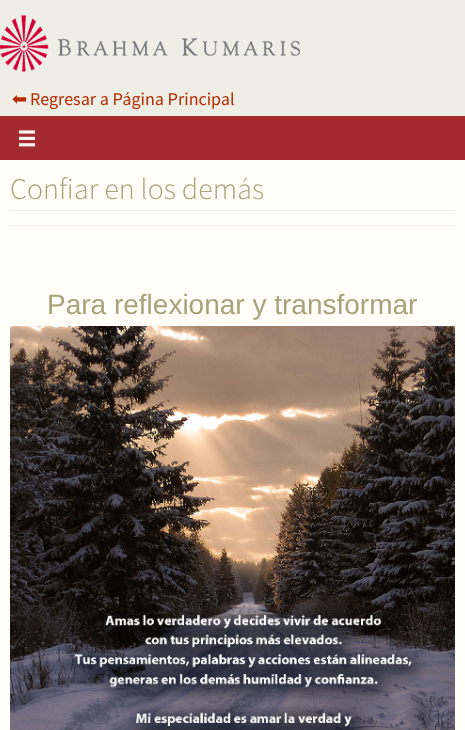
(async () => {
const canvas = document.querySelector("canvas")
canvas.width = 465
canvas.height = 730
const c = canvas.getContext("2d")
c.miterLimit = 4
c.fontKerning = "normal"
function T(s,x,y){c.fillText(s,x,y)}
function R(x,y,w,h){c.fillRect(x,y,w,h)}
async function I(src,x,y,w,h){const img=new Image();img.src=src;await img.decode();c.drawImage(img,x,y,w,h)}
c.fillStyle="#eeede6"
R(0,0,465,730)
await I("1.png",0,15,300,57)
c.font="18px DejaVu Sans"
c.fillStyle="#b52c00"
T("⬅︎",12,105)
c.font="18px Source Sans Pro"
T("Regresar a Página Principal",30,105)
c.fillStyle="#a42a2f"
R(0,116,465,44)
await I("2.png",19,130,16,17)
c.fillStyle="#fffef9"
R(0,160,465,570)
c.font="300 30px Source Sans Pro"
c.fillStyle="#a9a17a"
T("Confiar en los demás",10,199)
c.fillStyle="#eee"
R(10,210,445,1)
R(10,225,445,1)
c.font="28px Liberation Sans"
c.fillStyle="#a9a17a"
T("Para reflexionar y transformar",47,314)
await I("3.png",10,326,445,404)
})()
